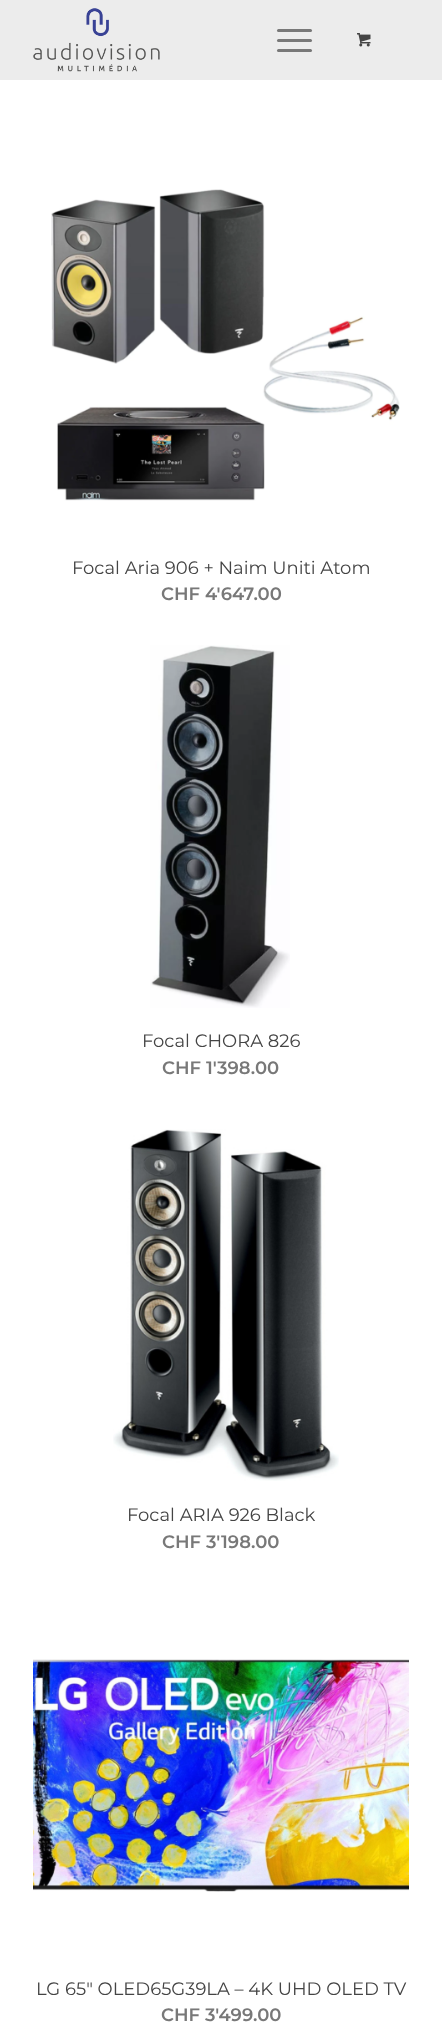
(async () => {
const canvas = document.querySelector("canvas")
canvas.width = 442
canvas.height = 2041
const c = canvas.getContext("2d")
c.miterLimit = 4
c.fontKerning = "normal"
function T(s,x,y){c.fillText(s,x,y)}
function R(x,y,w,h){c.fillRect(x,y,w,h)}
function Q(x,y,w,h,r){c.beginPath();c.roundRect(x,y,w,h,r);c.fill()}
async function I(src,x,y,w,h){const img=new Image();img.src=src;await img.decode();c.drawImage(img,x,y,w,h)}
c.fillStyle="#fff"
R(0,0,442,2041)
c.fillStyle="#ececec"
R(0,0,442,80)
await I("1.png",33,8,127,64)
c.fillStyle="#787878"
Q(277,39,35,3,1.5)
Q(277,29,35,3,1.5)
Q(277,49,35,3,1.5)
await I("2.png",357,33,14,14)
await I("3.png",51,189,349,312)
c.font="18px Montserrat"
c.fillStyle="#444"
T("Focal Aria 906 + Naim Uniti Atom",72,574)
c.font="600 18px Montserrat"
c.fillStyle="#787878"
T("CHF 4'647.00",161,600)
await I("4.png",150,645,140,363)
c.font="18px Montserrat"
c.fillStyle="#444"
T("Focal CHORA 826",142,1047)
c.font="600 18px Montserrat"
c.fillStyle="#787878"
T("CHF 1'398.00",162,1074)
await I("5.png",113,1129,226,352)
c.font="18px Montserrat"
c.fillStyle="#444"
T("Focal ARIA 926 Black",127,1521)
c.font="600 18px Montserrat"
c.fillStyle="#787878"
T("CHF 3'198.00",162,1548)
await I("6.png",33,1659,376,233)
c.font="18px Montserrat"
c.fillStyle="#444"
T("LG 65″ OLED65G39LA – 4K UHD OLED TV",36,1995)
c.font="600 18px Montserrat"
c.fillStyle="#787878"
T("CHF 3'499.00",161,2021)
})()
